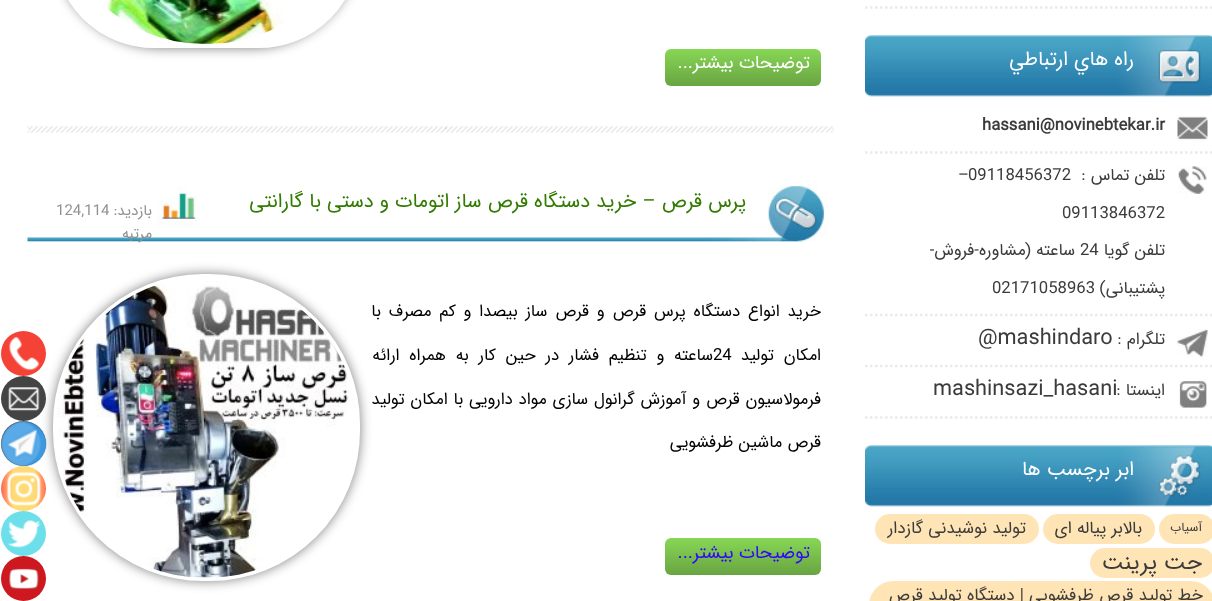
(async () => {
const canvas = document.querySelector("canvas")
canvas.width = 1212
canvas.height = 601
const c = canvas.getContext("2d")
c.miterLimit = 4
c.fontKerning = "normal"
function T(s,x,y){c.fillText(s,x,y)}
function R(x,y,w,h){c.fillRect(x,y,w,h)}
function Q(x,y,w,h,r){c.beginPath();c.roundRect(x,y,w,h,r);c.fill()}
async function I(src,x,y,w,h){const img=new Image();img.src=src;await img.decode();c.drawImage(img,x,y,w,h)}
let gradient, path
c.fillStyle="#fff"
R(0,0,1212,601)
path = new Path2D("M865 7.5h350")
c.strokeStyle="#eaeaea"
c.lineWidth=2.5
c.setLineDash([2.5,2.5])
c.stroke(path)
await I("1.png",865,35,347,62)
c.direction="rtl"
c.font="20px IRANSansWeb"
T("راه هاي ارتباطي",1134,65)
await I("2.png",1177,115,31,26)
path = new Path2D("M865 152.5h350")
c.stroke(path)
c.direction="ltr"
c.font="bold 16.7px IRANSansWeb"
c.fillStyle="#3b3b3b"
T("hassani@novinebtekar.ir",982,130)
await I("3.png",1178,166,29,28)
path = new Path2D("M865 315h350")
c.stroke(path)
c.direction="rtl"
c.font="16.7px IRANSansWeb"
T("تلفن تماس :",1165,180)
c.direction="ltr"
T("09118456372",968,180)
T("–",958,180)
T("09113846372",1062,218)
c.direction="rtl"
T("تلفن گویا",1165,255)
c.direction="ltr"
T("24",1080,255)
c.direction="rtl"
T("ساعته (مشاوره-فروش-",1075,255)
T("پشتیبانی)",1165,293)
c.direction="ltr"
T("02171058963",992,293)
await I("4.png",1177,329,31,28)
path = new Path2D("M865 366h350")
c.stroke(path)
c.direction="rtl"
T("تلگرام :",1165,344)
c.direction="ltr"
c.font="21.75px IRANSansWeb"
T("@mashindaro",978,344)
await I("5.png",1179,379,28,29)
path = new Path2D("M865 417.5h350")
c.stroke(path)
c.direction="rtl"
c.font="16.7px IRANSansWeb"
T("اینستا :",1165,395)
c.direction="ltr"
c.font="21.75px IRANSansWeb"
T("mashinsazi_hasani",933,395)
await I("6.png",865,445,347,62)
c.direction="rtl"
c.font="20px IRANSansWeb"
c.fillStyle="#fff"
T("ابر برچسب ها",1134,475)
c.fillStyle="#ffe4b5"
Q(1159,514,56,30,15)
c.font="12.5px IRANSansWeb"
c.fillStyle="#3b3b3b"
T("آسیاب",1202,531)
c.fillStyle="#ffe4b5"
Q(1043,514,112,30,15)
c.font="17px IRANSansWeb"
c.fillStyle="#3b3b3b"
T("بالابر پیاله ای",1142,533)
c.fillStyle="#ffe4b5"
Q(875,514,164,30,15)
c.fillStyle="#3b3b3b"
T("تولید نوشیدنی گازدار",1026,533)
c.fillStyle="#ffe4b5"
Q(1090,548,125,30,15)
c.font="22.5px IRANSansWeb"
c.fillStyle="#3b3b3b"
T("جت پرینت",1202,569)
c.fillStyle="#ffe4b5"
Q(869,581,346,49,29)
c.font="17px IRANSansWeb"
c.fillStyle="#3b3b3b"
T("خط تولید قرص ظرفشویی | دستگاه تولید قرص",1203,600)
gradient = c.createLinearGradient(743,49,743,86)
gradient.addColorStop(0,"#87d755")
gradient.addColorStop(1,"#69a442")
c.fillStyle = gradient
Q(665,49,156,37,6)
c.font="18.25px IRANSansWeb"
c.fillStyle="#fff"
T("توضيحات بيشتر...",810,68)
c.fillStyle="#00000080"
c.filter="blur(6px)"
c.beginPath()
c.roundRect(53,-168,307,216,150)
c.fill()
c.filter="none"
c.fillStyle="#fff"
c.beginPath()
c.roundRect(55,-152,303,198,148)
c.fill()
c.strokeStyle="#fff"
c.lineWidth=4
c.setLineDash([])
c.stroke()
await I("7.png",103,0,180,44)
await I("8.png",27,126,807,7)
await I("9.png",27,186,800,57)
c.font="20px IRANSansWeb"
c.fillStyle="#327b00"
T("پرس قرص – خرید دستگاه قرص ساز اتومات و دستی با گارانتی",746,207)
c.font="15px IRANSansWeb"
c.fillStyle="#919191"
T("بازدید:",152,215)
c.direction="ltr"
T("124,114",56,215)
c.direction="rtl"
T("مرتبه",152,238)
c.wordSpacing="2.75px"
c.font="16.7px IRANSansWeb"
c.fillStyle="#000"
T("خرید انواع دستگاه پرس قرص و قرص ساز بیصدا و کم مصرف با",821,316)
c.wordSpacing="4.75px"
T("امکان تولید",821,360)
c.wordSpacing="0px"
c.direction="ltr"
T("24",713,360)
c.wordSpacing="4.75px"
c.direction="rtl"
T("ساعته و تنظیم فشار در حین کار به همراه ارائه",713,360)
c.wordSpacing="0.75px"
T("فرمولاسیون قرص و آموزش گرانول سازی مواد دارویی با امکان تولید",821,404)
c.wordSpacing="0px"
T("قرص ماشین ظرفشویی",821,447)
gradient = c.createLinearGradient(743,538,743,575)
gradient.addColorStop(0,"#87d755")
gradient.addColorStop(1,"#69a442")
c.fillStyle = gradient
Q(665,538,156,37,6)
c.font="18.25px IRANSansWeb"
c.fillStyle="#3106fd"
T("توضيحات بيشتر...",810,558)
c.fillStyle="#00000080"
c.filter="blur(6px)"
c.beginPath()
c.roundRect(53,274,307,307,150)
c.fill()
c.filter="none"
c.fillStyle="#fff"
c.beginPath()
c.roundRect(55,276,303,303,148)
c.fill()
c.stroke()
await I("10.png",57,280,298,298)
c.fillStyle="#f44336"
c.beginPath()
c.arc(23.5,353.5,22.5,0,7)
c.fill()
await I("11.png",9,336,31,35)
c.fillStyle="#444"
c.beginPath()
c.arc(23.5,398.5,22.5,0,7)
c.fill()
await I("12.png",8,387,32,24)
c.beginPath()
c.arc(23.5,443.5,22.5,0,7)
c.fill()
await I("13.png",1,421,46,46)
gradient = c.createRadialGradient(24,112.03,0,24,112.03,63)
gradient.addColorStop(.18,"#ffda75")
gradient.addColorStop(.43,"#ff3a49")
gradient.addColorStop(.5,"#ff3a49")
gradient.addColorStop(.7,"#e518a1")
gradient.addColorStop(1,"#6634e1")
c.fillStyle = gradient
c.beginPath()
c.arc(23.5,488.5,22.5,0,7)
c.save()
c.clip()
c.scale(1,275 / 63)
c.fillRect(0,0,1212,138)
c.restore()
await I("14.png",7,472,34,34)
c.fillStyle="#6cdfea"
c.beginPath()
c.arc(23.5,533.5,22.5,0,7)
c.fill()
await I("15.png",8,520,33,28)
c.fillStyle="#cd181f"
c.beginPath()
c.arc(23.5,578.5,22.5,0,7)
c.fill()
await I("16.png",9,568,30,22)
})()
